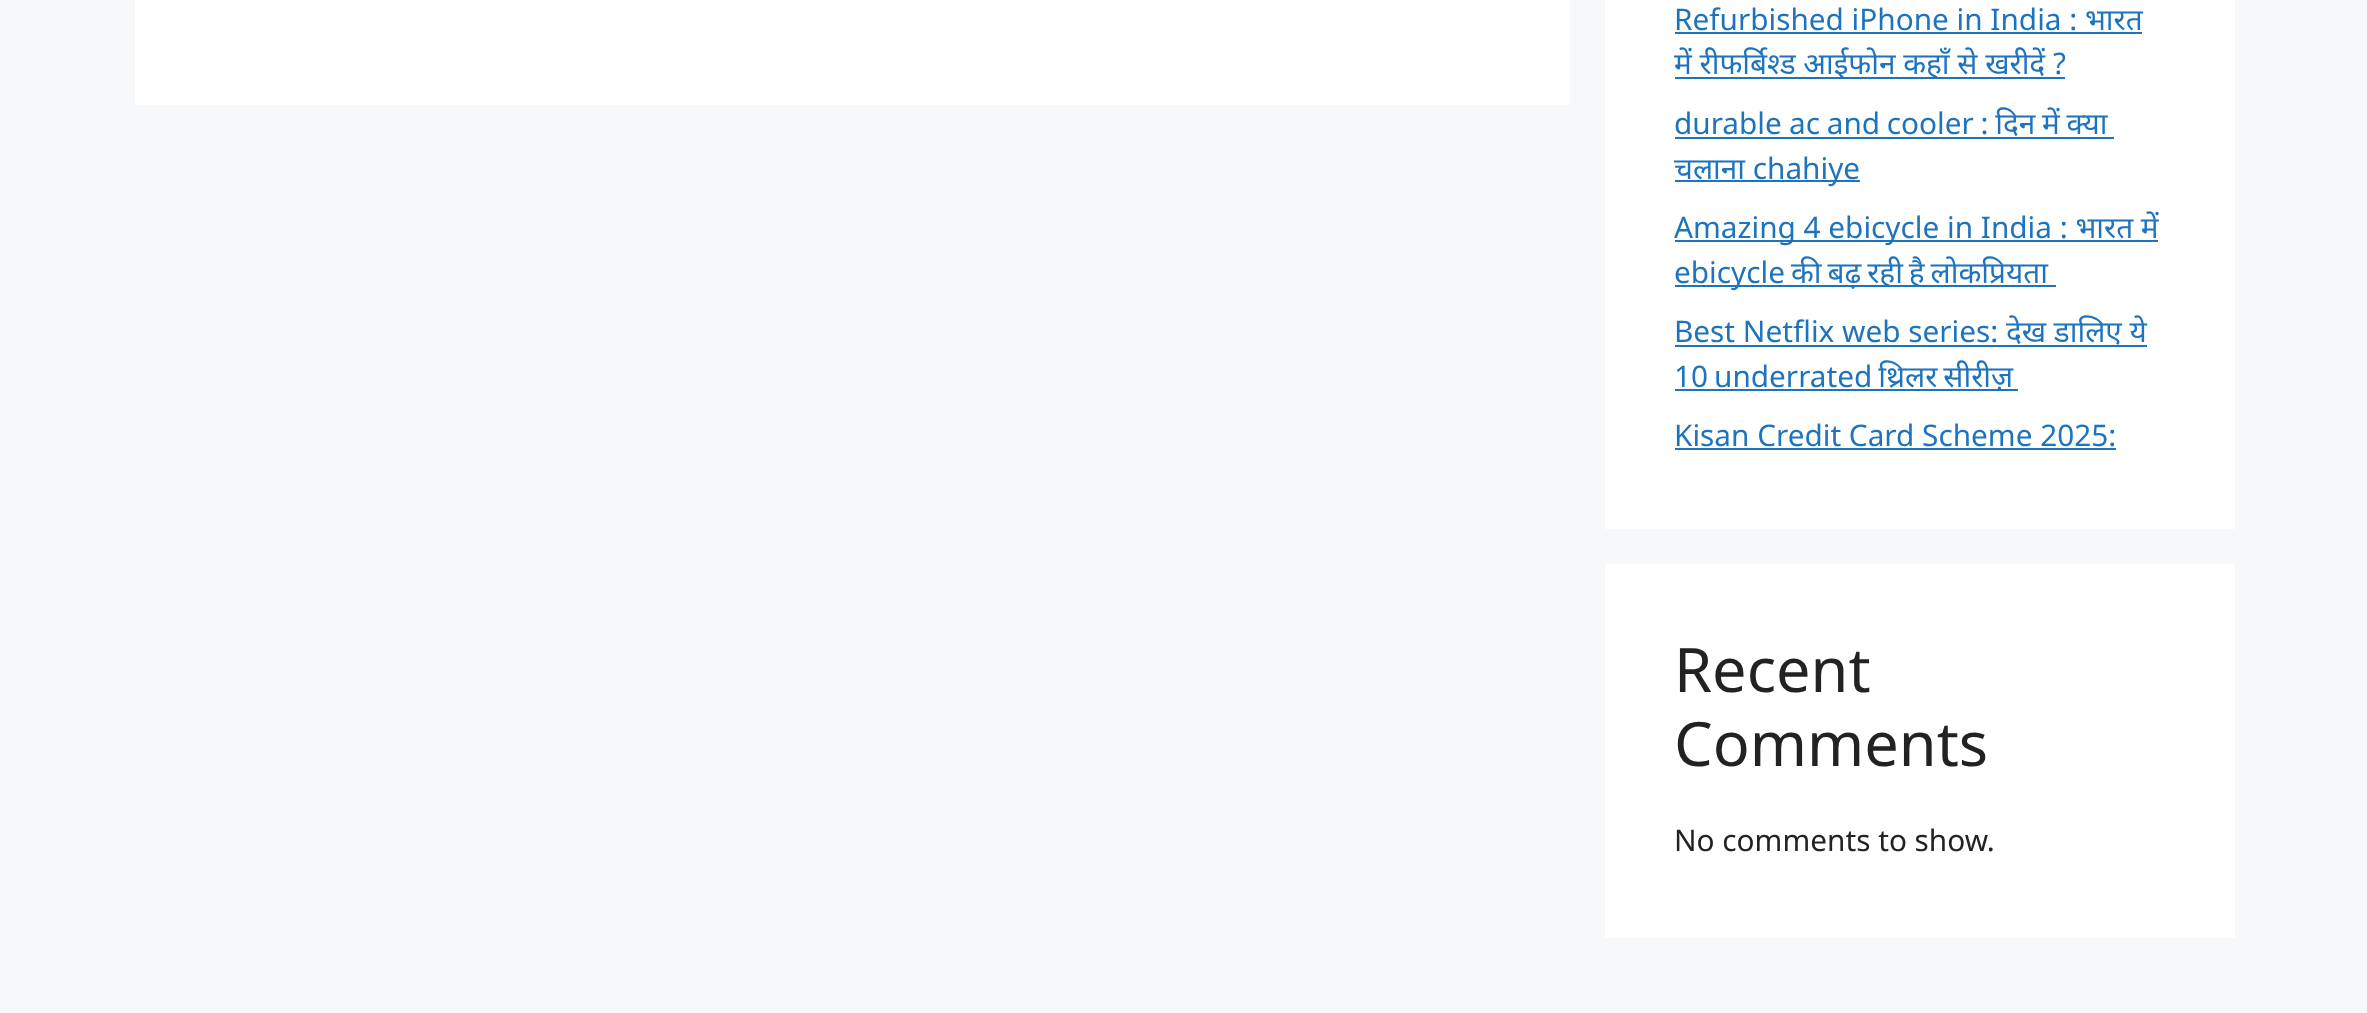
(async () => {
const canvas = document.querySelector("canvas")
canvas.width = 2367
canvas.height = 1013
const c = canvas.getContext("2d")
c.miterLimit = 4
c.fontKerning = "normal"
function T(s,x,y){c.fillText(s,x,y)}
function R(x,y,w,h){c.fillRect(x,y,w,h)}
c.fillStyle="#f7f8f9"
R(0,0,2367,1013)
c.fillStyle="#fff"
R(135,0,1435,105)
R(1605,0,630,529)
c.font="29.75px Noto Sans"
c.fillStyle="#1e73be"
T("Refurbished iPhone in India : भारत",1674,30)
R(1675,32,467,2)
R(1675,77,390,2)
T("में रीफर्बिश्ड आईफोन कहाँ से खरीदें ?",1674,74)
T("durable",1674,134)
R(1675,137,439,2)
c.wordSpacing="-1px"
T("ac and cooler : दिन में क्या",1789,134)
R(1675,180,185,2)
c.wordSpacing="0px"
T("चलाना chahiye",1674,179)
R(1675,240,483,2)
T("Amazing 4 ebicycle in India : भारत में",1674,238)
R(1675,285,381,2)
c.wordSpacing="-1.75px"
T("ebicycle की बढ़ रही है लोकप्रियता",1674,283)
c.wordSpacing="0px"
T("Best Netflix web series: देख डालिए ये",1674,342)
R(1675,345,472,2)
R(1675,389,343,2)
c.wordSpacing="-1.75px"
T("10 underrated थ्रिलर सीरीज़",1674,387)
c.wordSpacing="0px"
T("Kisan Credit Card Scheme 2025:",1674,446)
R(1675,448,441,2)
c.fillStyle="#fff"
R(1605,564,630,374)
c.font="61.25px Noto Sans"
c.fillStyle="#222"
T("Recent",1674,692)
T("Comments",1674,766)
c.font="29.75px Noto Sans"
T("No comments to show.",1674,851)
})()
